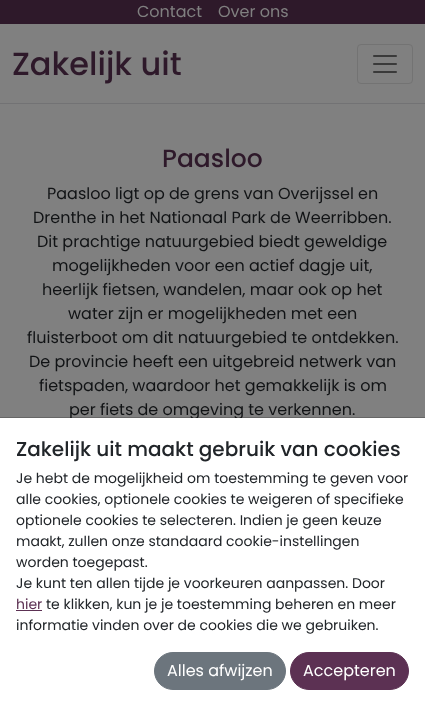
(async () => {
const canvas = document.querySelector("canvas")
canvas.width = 425
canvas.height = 706
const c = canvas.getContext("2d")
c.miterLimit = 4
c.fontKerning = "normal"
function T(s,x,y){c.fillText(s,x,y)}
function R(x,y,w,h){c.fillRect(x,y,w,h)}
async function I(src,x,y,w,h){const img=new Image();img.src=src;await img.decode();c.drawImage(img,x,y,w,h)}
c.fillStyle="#808080"
R(0,0,425,706)
c.fillStyle="#2e192a"
R(0,0,425,24)
c.font="16px Poppins"
c.fillStyle="#808080"
T("Contact",137,17)
T("Over ons",218,17)
c.fillStyle="#727274"
R(0,103,425,1)
c.font="500 32px Poppins"
c.fillStyle="#2e192a"
T("Zakelijk uit",12,75)
c.beginPath()
c.roundRect(357.5,44.5,55,39,3.5)
c.strokeStyle="#737373"
c.stroke()
await I("1.png",373,55,24,18)
c.font="500 25px Poppins"
T("Paasloo",162,167)
c.font="16px Poppins"
c.fillStyle="#111315"
T("Paasloo ligt op de grens van Overijssel en",47,199)
T("Drenthe in het Nationaal Park de Weerribben.",33,223)
T("Dit prachtige natuurgebied biedt geweldige",37,247)
T("mogelijkheden voor een actief dagje uit,",52,271)
T("heerlijk fietsen, wandelen, maar ook op het",42,295)
T("water zijn er mogelijkheden met een",68,319)
T("fluisterboot om dit natuurgebied te ontdekken.",27,343)
T("De provincie heeft een uitgebreid netwerk van",29,367)
T("fietspaden, waardoor het gemakkelijk is om",39,391)
T("per fiets de omgeving te verkennen.",69,415)
c.fillStyle="#fff"
R(0,418,425,288)
c.fillStyle="#00000033"
R(0,417,425,1)
c.font="500 20px Poppins"
c.fillStyle="#212529"
T("Zakelijk uit maakt gebruik van cookies",16,456)
c.font="14px Poppins"
T("Je hebt de mogelijkheid om toestemming te geven voor",16,483)
T("alle cookies, optionele cookies te weigeren of specifieke",16,504)
T("optionele cookies te selecteren. Indien je geen keuze",16,525)
T("maakt, zullen onze standaard cookie-instellingen",16,546)
T("worden toegepast.",16,567)
T("Je kunt ten allen tijde je voorkeuren aanpassen. Door",16,588)
c.fillStyle="#5c3153"
T("hier",16,609)
R(16,610,26,1)
c.fillStyle="#212529"
T("te klikken, kun je je toestemming beheren en meer",46,609)
T("informatie vinden over de cookies die we gebruiken.",16,630)
c.fillStyle="#6c757d"
c.beginPath()
c.roundRect(154.5,652.5,131,37,18.5)
c.fill()
c.strokeStyle="#6c757d"
c.stroke()
c.font="16px Poppins"
c.fillStyle="#fff"
T("Alles afwijzen",167,676)
c.fillStyle="#5c3153"
c.beginPath()
c.roundRect(290.5,652.5,118,37,18.5)
c.fill()
c.strokeStyle="#5c3153"
c.stroke()
c.fillStyle="#fff"
T("Accepteren",303,676)
})()
